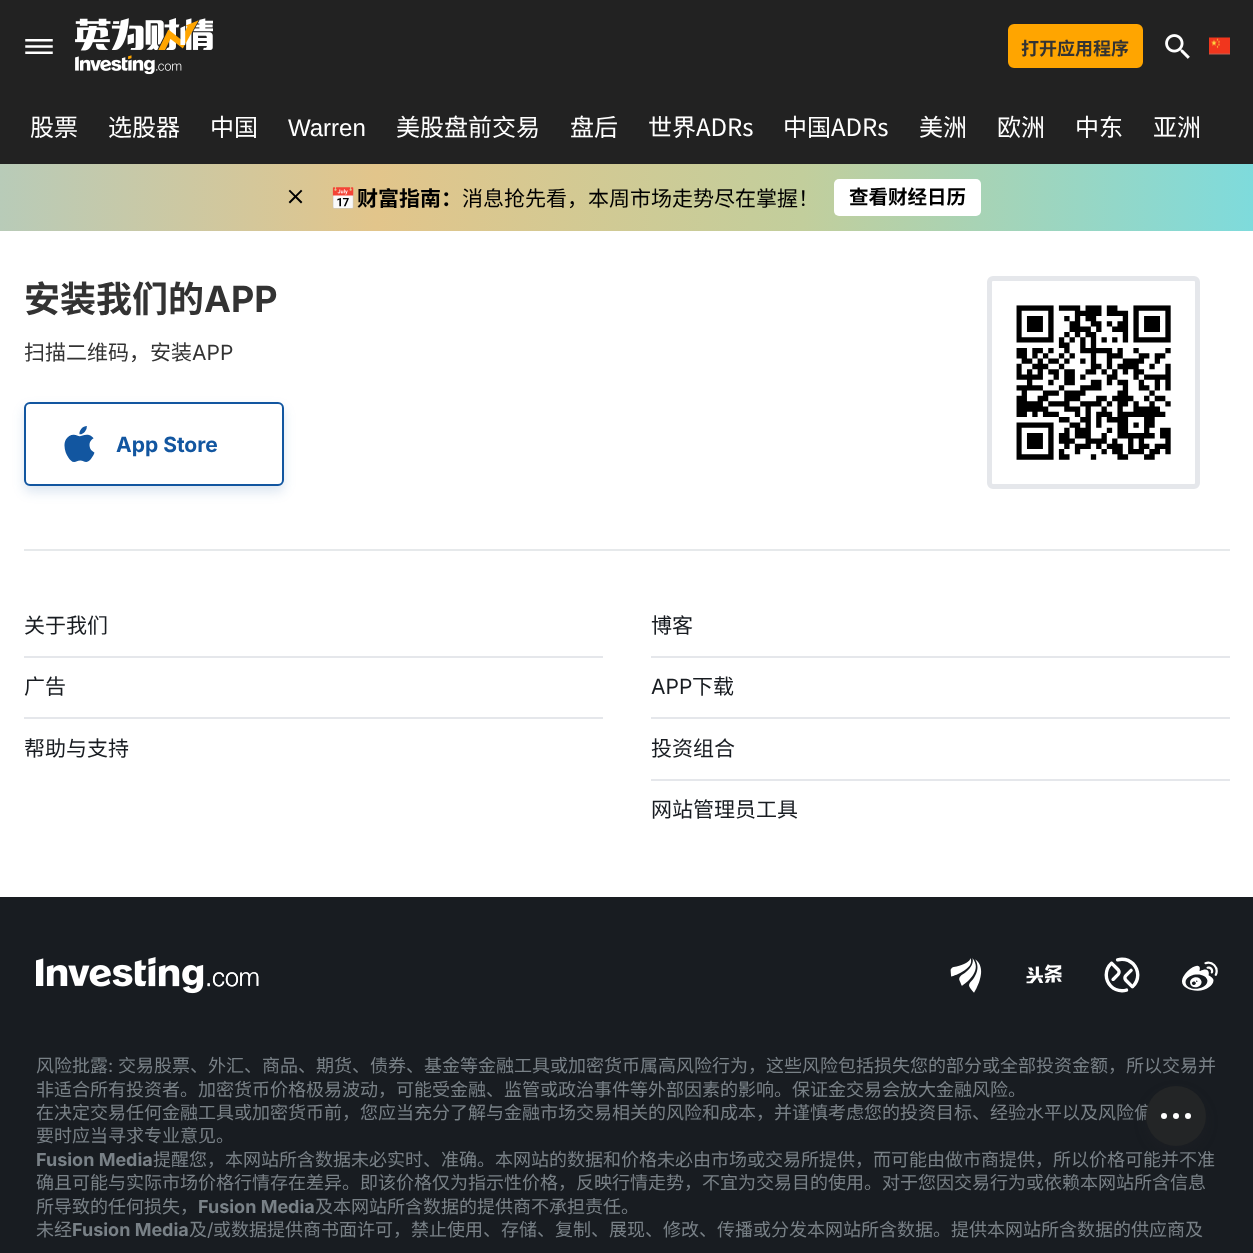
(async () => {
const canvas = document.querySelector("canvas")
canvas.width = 1253
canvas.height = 1253
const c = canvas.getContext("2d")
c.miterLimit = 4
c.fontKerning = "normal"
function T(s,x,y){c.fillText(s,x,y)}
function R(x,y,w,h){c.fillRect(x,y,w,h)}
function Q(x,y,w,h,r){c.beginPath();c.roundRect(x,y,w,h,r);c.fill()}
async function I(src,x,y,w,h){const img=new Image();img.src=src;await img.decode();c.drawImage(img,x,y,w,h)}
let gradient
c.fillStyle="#fff"
R(0,0,1253,1253)
c.fillStyle="#222"
R(0,0,1253,164)
await I("1.png",25,39,28,15)
await I("2.png",75,18,138,57)
c.fillStyle="#ffa500"
c.beginPath()
c.roundRect(1009,25,133,42,5)
c.fill()
c.strokeStyle="#ffa500"
c.lineWidth=2
c.stroke()
c.font="bold 18px Noto Sans SC"
c.fillStyle="#333"
T("打开应用程序",1021,55)
await I("3.png",1165,34,25,25)
await I("4.png",1209,37,21,18)
c.font="24px Noto Sans SC"
c.fillStyle="#fff"
T("股票",30,136)
T("选股器",108,136)
T("中国",210,136)
c.font="24px Liberation Sans"
T("Warren",288,136)
c.font="24px Noto Sans SC"
T("美股盘前交易",396,136)
T("盘后",570,136)
T("世界ADRs",648,136)
T("中国ADRs",783,136)
T("美洲",919,136)
T("欧洲",997,136)
T("中东",1075,136)
T("亚洲",1153,136)
gradient = c.createLinearGradient(0,197,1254,197)
gradient.addColorStop(0,"#e4afcb")
gradient.addColorStop(0,"#b8cbb8")
gradient.addColorStop(.3,"#e2c58b")
gradient.addColorStop(.64,"#c2ce9c")
gradient.addColorStop(1,"#7edbdc")
c.fillStyle = gradient
R(0,164,1253,67)
await I("5.png",288,189,15,15)
c.font="21px Noto Color Emoji"
c.fillStyle="#000"
T("📅",330,206)
c.font="bold 21px Noto Sans SC"
T("财富指南：",357,206)
c.font="21px Noto Sans SC"
T("消息抢先看，本周市场走势尽在掌握！",462,206)
c.fillStyle="#fff"
Q(834,179,147,37,5)
c.font="bold 19.5px Noto Sans SC"
c.fillStyle="#000"
T("查看财经日历",849,204)
c.fillStyle="#e6e9eb"
R(24,549,1206,2)
c.font="bold 36px Noto Sans SC"
c.fillStyle="#333"
T("安装我们的",24,312)
c.font="bold 36px Inter"
T("APP",204,312)
c.font="21px Noto Sans SC"
T("扫描二维码，安装",24,360)
c.font="21px Inter"
T("APP",192,360)
c.fillStyle="#1256a026"
c.filter="blur(6px)"
c.beginPath()
c.roundRect(24,408,260,84,6)
c.fill()
c.filter="none"
c.fillStyle="#fff"
c.beginPath()
c.roundRect(25,403,258,82,5)
c.fill()
c.strokeStyle="#1256a0"
c.stroke()
await I("6.png",64,426,31,36)
c.font="bold 21px Inter"
c.fillStyle="#1256a0"
T("App Store",116,452)
c.beginPath()
c.roundRect(989.5,278.5,208,208,3.5)
c.strokeStyle="#e5e7eb"
c.lineWidth=5
c.stroke()
await I("7.png",1016,305,155,155)
c.fillStyle="#e5e7eb"
R(24,656,579,2)
c.font="21px Noto Sans SC"
c.fillStyle="#181c21"
T("关于我们",24,633)
c.fillStyle="#e5e7eb"
R(24,717,579,2)
c.fillStyle="#181c21"
T("广告",24,694)
T("帮助与支持",24,756)
c.fillStyle="#e5e7eb"
R(651,656,579,2)
c.fillStyle="#181c21"
T("博客",651,633)
c.fillStyle="#e5e7eb"
R(651,717,579,2)
c.font="21px Inter"
c.fillStyle="#181c21"
T("APP",651,694)
c.font="21px Noto Sans SC"
T("下载",692,694)
c.fillStyle="#e5e7eb"
R(651,779,579,2)
c.fillStyle="#181c21"
T("投资组合",651,756)
T("网站管理员工具",651,817)
R(0,897,1253,356)
await I("8.png",36,957,223,37)
await I("9.png",950,958,32,35)
await I("10.png",1026,964,36,20)
await I("11.png",1104,957,36,36)
await I("12.png",1182,961,36,30)
c.font="18px Noto Sans SC"
c.fillStyle="#798187"
T("风险批露",36,1072)
c.font="18px Inter"
T(":",108,1072)
c.font="18px Noto Sans SC"
T("交易股票、外汇、商品、期货、债券、基金等金融工具或加密货币属高风险行为，这些风险包括损失您的部分或全部投资金额，所以交易并",118,1072)
T("非适合所有投资者。加密货币价格极易波动，可能受金融、监管或政治事件等外部因素的影响。保证金交易会放大金融风险。",36,1096)
T("在决定交易任何金融工具或加密货币前，您应当充分了解与金融市场交易相关的风险和成本，并谨慎考虑您的投资目标、经验水平以及风险偏",36,1119)
T("要时应当寻求专业意见。",36,1142)
c.font="bold 18px Inter"
T("Fusion Media",36,1166)
c.font="18px Noto Sans SC"
T("提醒您，本网站所含数据未必实时、准确。本网站的数据和价格未必由市场或交易所提供，而可能由做市商提供，所以价格可能并不准",153,1166)
T("确且可能与实际市场价格行情存在差异。即该价格仅为指示性价格，反映行情走势，不宜为交易目的使用。对于您因交易行为或依赖本网站所含信息",36,1189)
T("所导致的任何损失，",36,1213)
c.font="bold 18px Inter"
T("Fusion Media",198,1213)
c.font="18px Noto Sans SC"
T("及本网站所含数据的提供商不承担责任。",315,1213)
T("未经",36,1236)
c.font="bold 18px Inter"
T("Fusion Media",72,1236)
c.font="18px Noto Sans SC"
T("及",189,1236)
c.font="18px Inter"
T("/",207,1236)
c.font="18px Noto Sans SC"
T("或数据提供商书面许可，禁止使用、存储、复制、展现、修改、传播或分发本网站所含数据。提供本网站所含数据的供应商及",213,1236)
c.fillStyle="#23252640"
c.filter="blur(6px)"
c.beginPath()
c.roundRect(1146,1092,60,60,30)
c.fill()
c.filter="none"
c.fillStyle="#232526"
c.beginPath()
c.arc(1176,1116,30,0,7)
c.fill()
c.fillStyle="#fff"
c.beginPath()
c.arc(1188,1116,3,0,7)
c.fill()
c.beginPath()
c.arc(1164,1116,3,0,7)
c.fill()
c.beginPath()
c.arc(1176,1116,3,0,7)
c.fill()
})()
